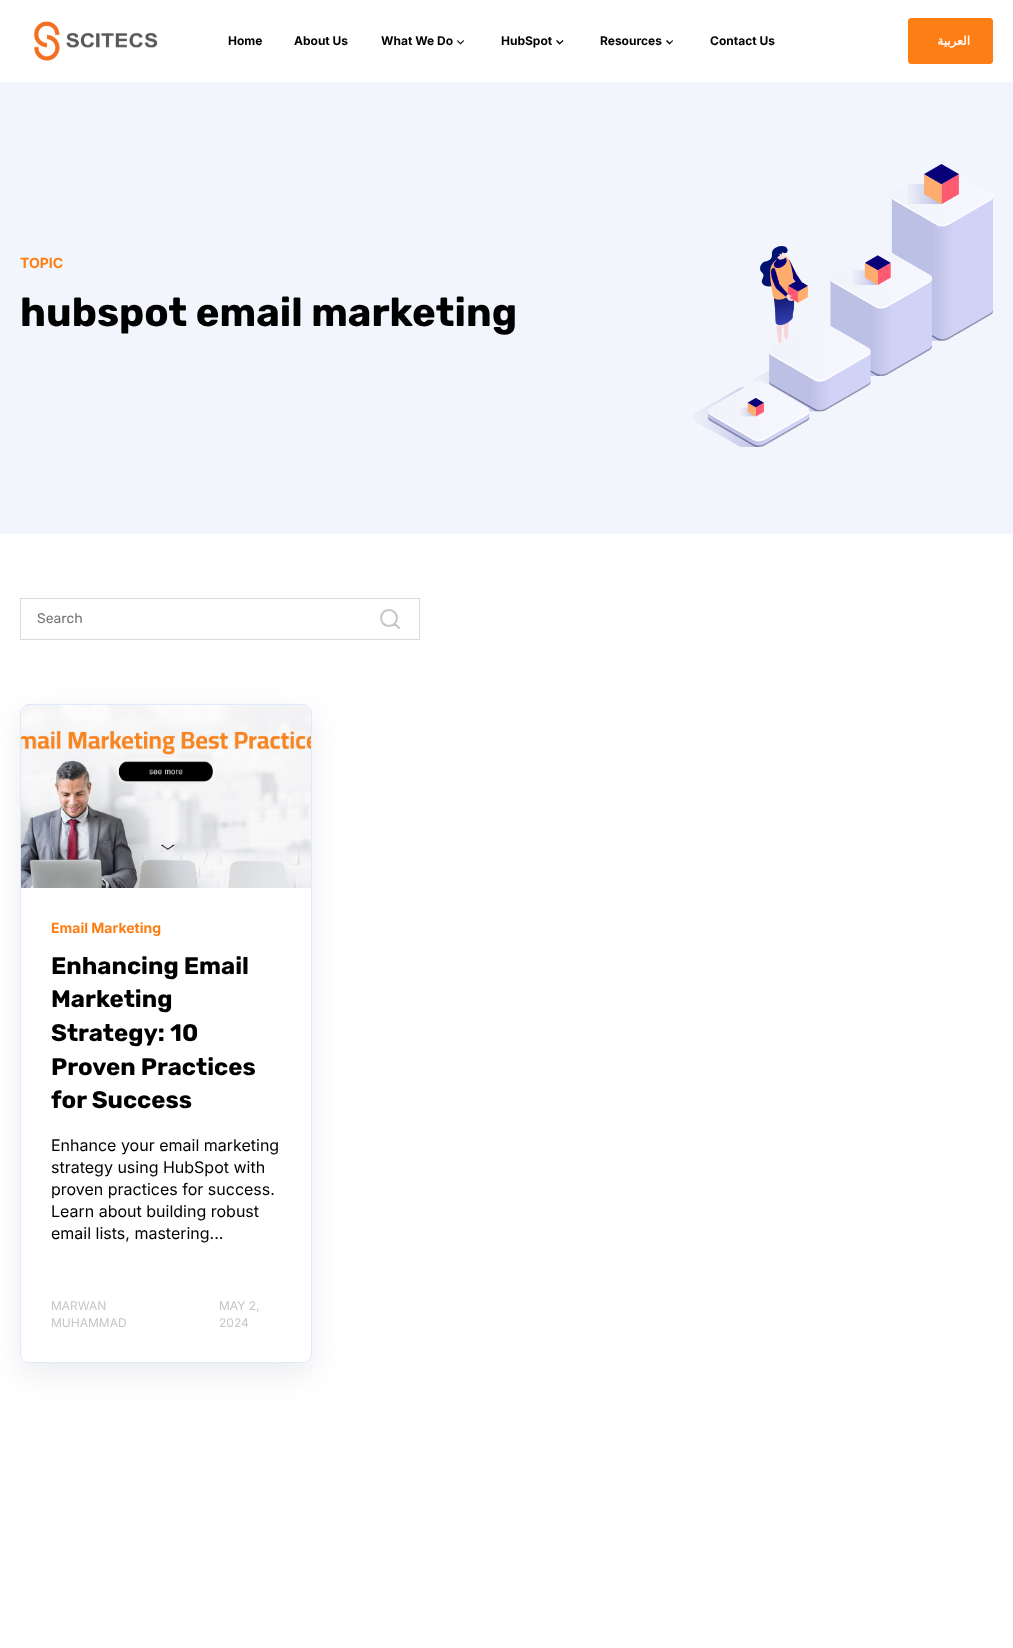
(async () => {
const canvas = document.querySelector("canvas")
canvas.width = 1013
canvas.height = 1648
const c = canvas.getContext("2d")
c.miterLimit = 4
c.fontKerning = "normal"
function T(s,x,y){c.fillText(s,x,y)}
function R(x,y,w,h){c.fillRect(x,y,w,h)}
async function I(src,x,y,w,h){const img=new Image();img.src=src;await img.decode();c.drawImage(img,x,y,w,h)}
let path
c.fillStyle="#fff"
R(0,0,1013,1648)
await I("1.png",34,21,124,40)
c.font="bold 12px Inter"
c.fillStyle="#000"
T("Home",228,45)
T("About Us",294,45)
T("What We Do",381,45)
path = new Path2D("M463.5 40l.5 1l-3.5 3.5l-.5-1z")
c.fill(path)
path = new Path2D("M457.5 40l3.5 3.5l-.5 1l-3.5-3.5z")
c.fill(path)
T("HubSpot",501,45)
path = new Path2D("M562.5 40l1 1l-4 3.5l-.5-1z")
c.fill(path)
path = new Path2D("M557 40l3.5 3.5l-1 1l-3.5-3.5z")
c.fill(path)
T("Resources",600,45)
path = new Path2D("M672.5 40l.5 1l-3.5 3.5l-.5-1z")
c.fill(path)
path = new Path2D("M667 40l3.5 3.5l-1 1l-3.5-3.5z")
c.fill(path)
T("Contact Us",710,45)
c.fillStyle="#fd7e14"
c.beginPath()
c.roundRect(908.5,18.5,84,45,2.5)
c.fill()
c.strokeStyle="#fd7e14"
c.stroke()
c.letterSpacing="0.5px"
c.direction="rtl"
c.font="bold 12px DejaVu Sans"
c.fillStyle="#fff"
T("العربية",970,45)
c.fillStyle="#f2f5fb"
R(0,82,1013,452)
c.letterSpacing="0px"
c.direction="ltr"
c.font="bold 14px Inter"
c.fillStyle="#fd7e14"
T("TOPIC",20,268)
c.font="bold 40px Rubik"
c.fillStyle="#000"
T("hubspot email marketing",20,326)
await I("2.png",693,164,300,283)
c.strokeStyle="#dadada"
c.strokeRect(20.5,598.5,399,41)
c.font="14px Rubik"
c.fillStyle="#757575"
T("Search",37,623)
path = new Path2D("M389 626c10.5 0 10.5-16 0-16c-10.5 0-10.5 16 0 16zm10 2l-4-4")
c.strokeStyle="#c6c6c6"
c.lineWidth=2
c.lineCap="round"
c.lineJoin="round"
c.stroke(path)
c.save()
path = new Path2D("M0 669h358v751h-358zm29 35h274c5 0 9 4 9 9v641c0 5-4 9-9 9h-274c-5 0-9-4-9-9v-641c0-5 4-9 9-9z")
c.clip(path,"evenodd")
c.fillStyle="#9aa1b133"
c.filter="blur(15px)"
c.beginPath()
c.roundRect(20,715,292,659,9)
c.fill()
c.filter="none"
c.restore()
c.beginPath()
c.roundRect(20.5,704.5,291,658,8.5)
c.strokeStyle="#6492fd33"
c.lineWidth=1
c.lineJoin="miter"
c.stroke()
await I("3.png",21,705,290,183)
c.font="bold 14px Inter"
c.fillStyle="#fd7e14"
T("Email Marketing",51,933)
c.font="bold 24px Rubik"
c.fillStyle="#000"
T("Enhancing Email",51,974)
T("Marketing",51,1007)
T("Strategy: 10",51,1041)
T("Proven Practices",51,1075)
T("for Success",51,1108)
c.font="16px Inter"
T("Enhance your email marketing",51,1151)
T("strategy using HubSpot with",51,1173)
T("proven practices for success.",51,1195)
T("Learn about building robust",51,1217)
T("email lists, mastering...",51,1239)
c.font="12px Inter"
c.fillStyle="#c6c6c6"
T("MARWAN",51,1310)
T("MUHAMMAD",51,1327)
T("MAY 2,",219,1310)
T("2024",219,1327)
})()
